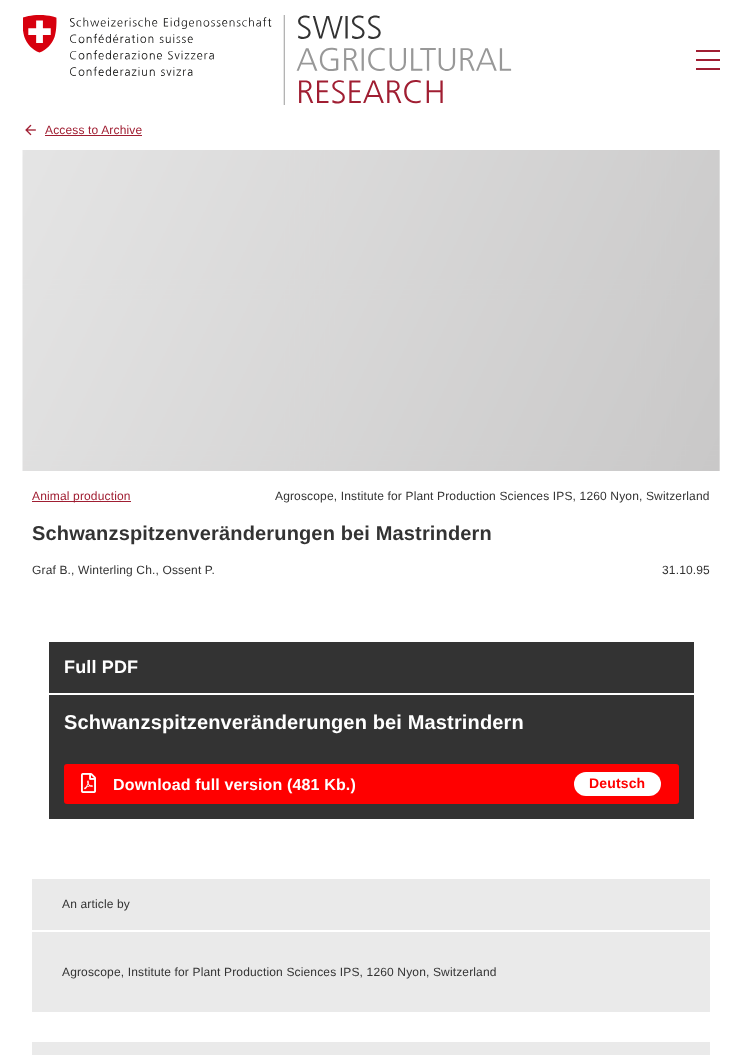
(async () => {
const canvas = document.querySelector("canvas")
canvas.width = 742
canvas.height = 1055
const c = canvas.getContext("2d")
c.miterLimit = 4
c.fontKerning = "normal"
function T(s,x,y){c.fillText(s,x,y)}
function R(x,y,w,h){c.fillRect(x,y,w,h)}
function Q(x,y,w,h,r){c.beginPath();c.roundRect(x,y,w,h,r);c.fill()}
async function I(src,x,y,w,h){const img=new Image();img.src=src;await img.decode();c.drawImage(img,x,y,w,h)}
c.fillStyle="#fff"
R(0,0,742,1055)
await I("1.png",23,15,489,90)
c.fillStyle="#a01e32"
R(696,50,24,2)
R(696,59,24,2)
R(696,68,24,2)
await I("2.png",25,124,11,12)
c.letterSpacing="0.15px"
c.font="12px Liberation Sans"
T("Access to Archive",45,134)
R(45,135,97,1)
c.fillStyle="#eaeaea"
R(719,150,1,321)
await I("3.png",22,150,698,321)
c.fillStyle="#a01e32"
R(32,501,99,1)
T("Animal production",32,500)
c.fillStyle="#333"
T("Agroscope, Institute for Plant Production Sciences IPS, 1260 Nyon, Switzerland",275,500)
c.font="bold 20px Liberation Sans"
T("Schwanzspitzenveränderungen bei Mastrindern",32,540)
c.font="12px Liberation Sans"
T("Graf B., Winterling Ch., Ossent P.",32,574)
T("31.10.95",662,574)
R(49,642,645,177)
c.fillStyle="#fff"
R(49,693,645,2)
c.font="bold 18px Liberation Sans"
T("Full PDF",64,673)
c.font="bold 20px Liberation Sans"
T("Schwanzspitzenveränderungen bei Mastrindern",64,729)
c.fillStyle="#f00"
Q(64,764,615,40,3)
await I("4.png",81,773,15,20)
c.font="bold 16px Liberation Sans"
c.fillStyle="#fff"
T("Download full version (481 Kb.)",113,790)
Q(574,772,87,24,12)
c.font="bold 14px Liberation Sans"
c.fillStyle="#f00"
T("Deutsch",589,788)
c.fillStyle="#eaeaea"
R(32,879,678,133)
c.fillStyle="#fff"
R(32,930,678,2)
c.font="12px Liberation Sans"
c.fillStyle="#333"
T("An article by",62,908)
T("Agroscope, Institute for Plant Production Sciences IPS, 1260 Nyon, Switzerland",62,976)
c.fillStyle="#eaeaea"
R(32,1042,678,13)
})()
